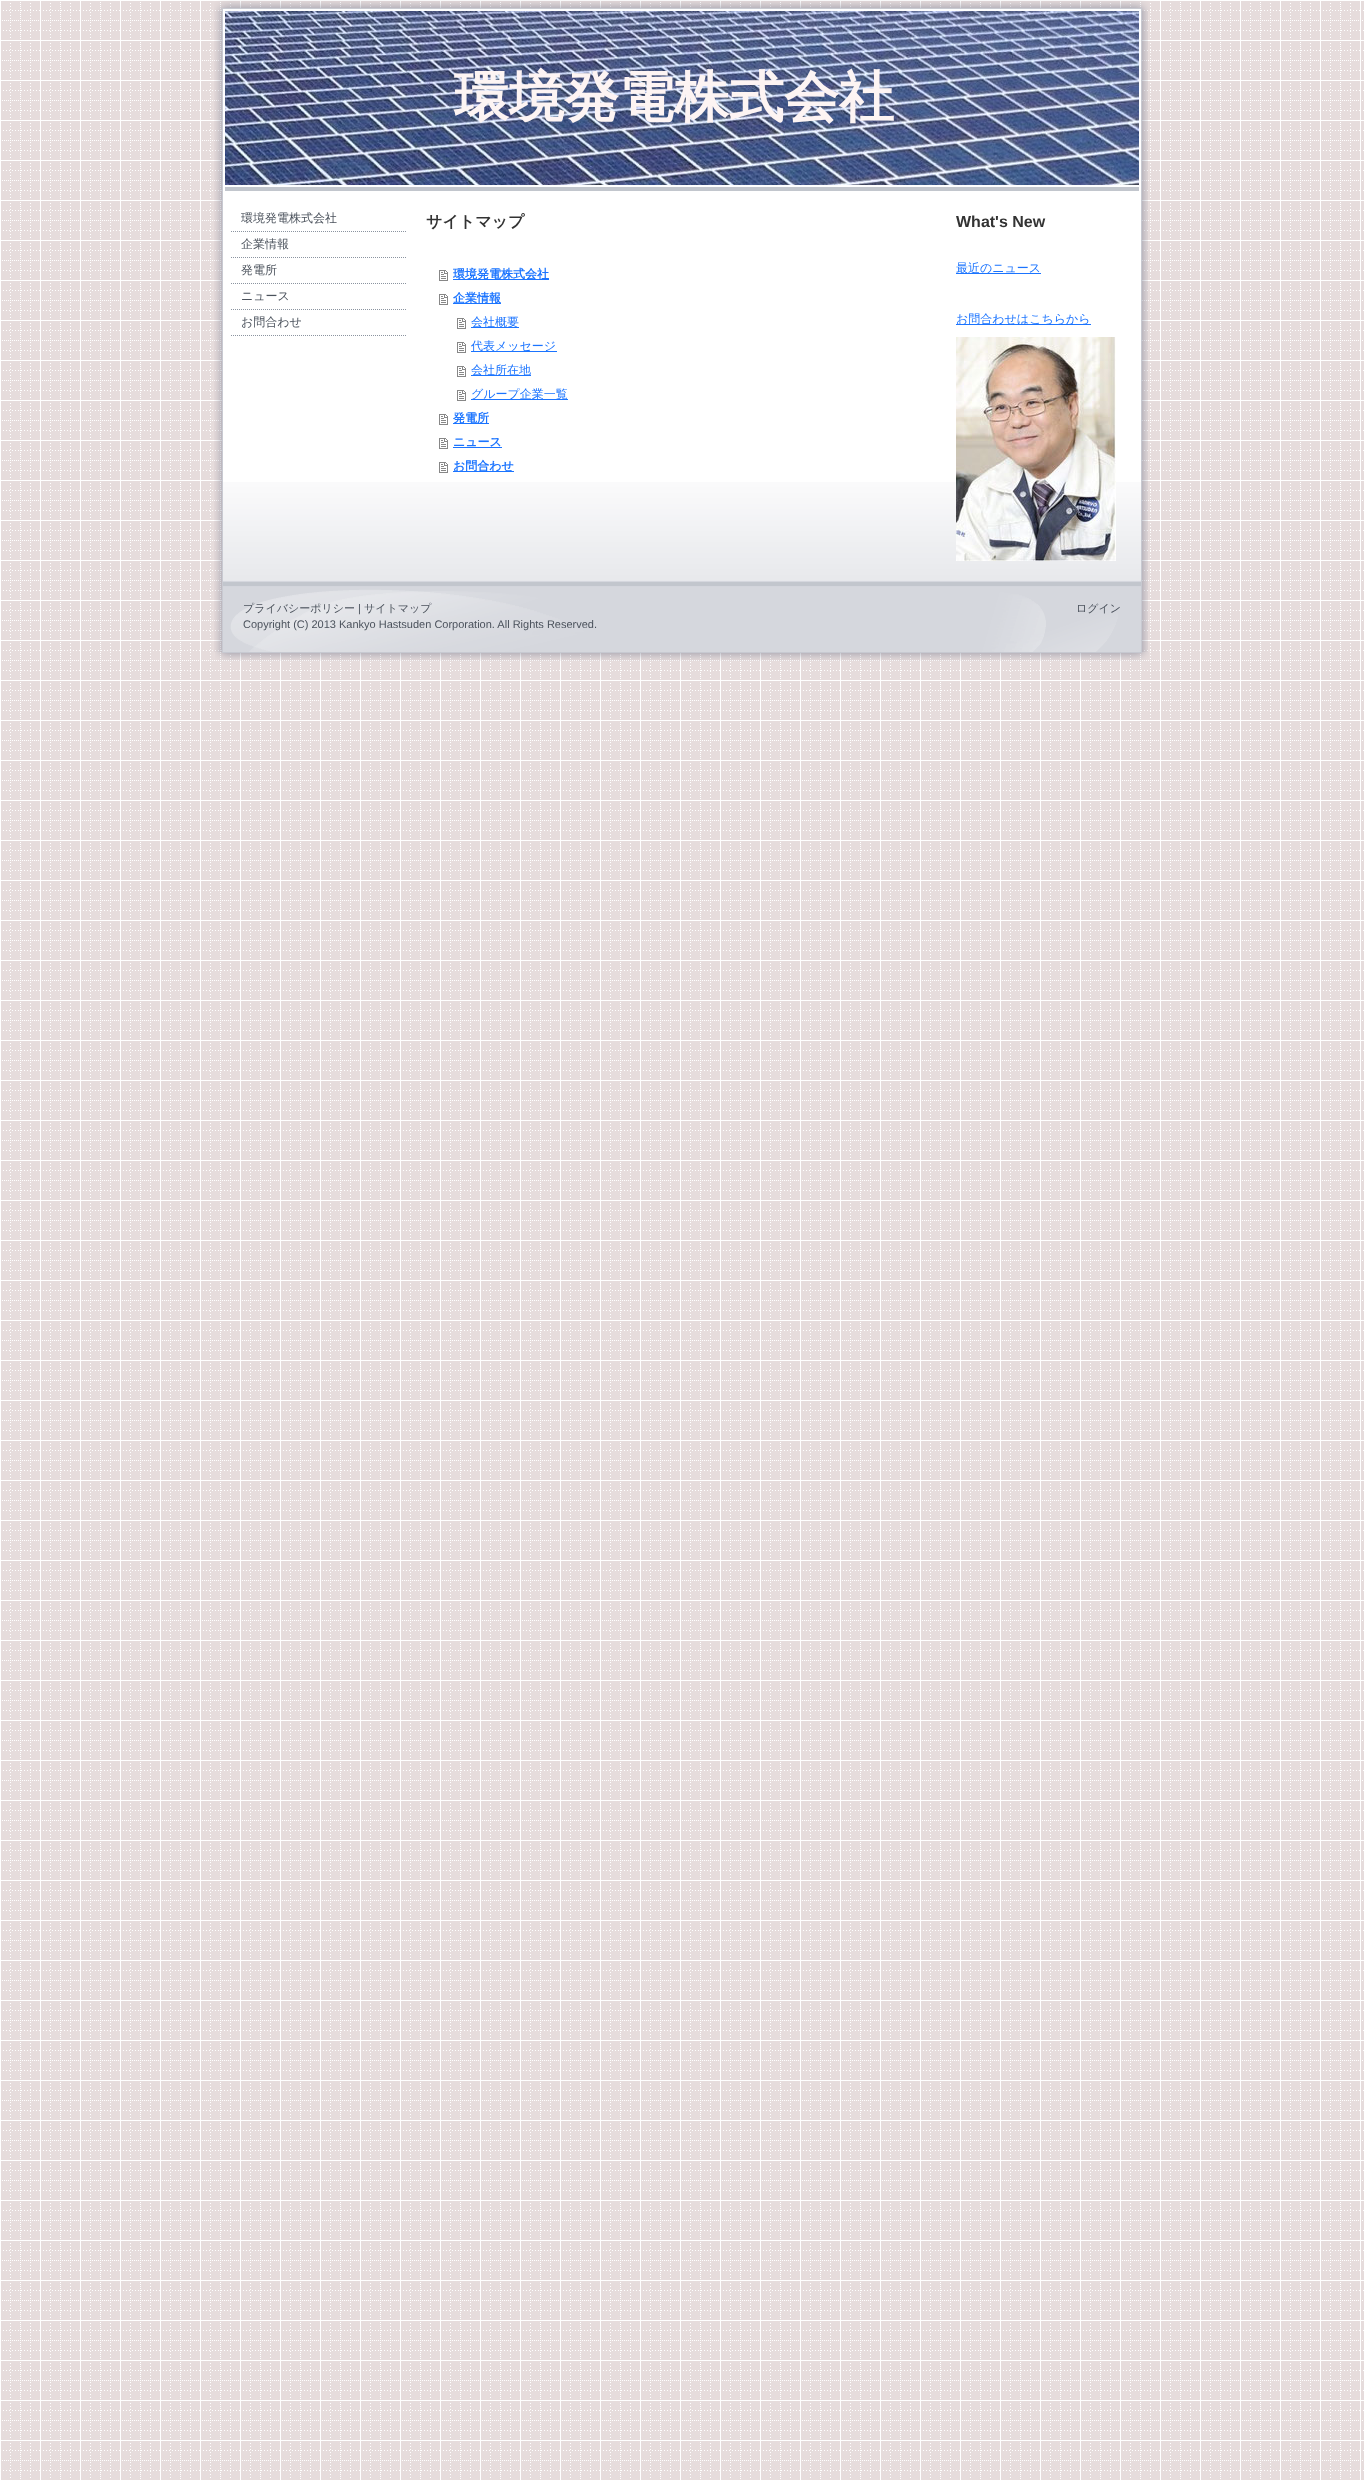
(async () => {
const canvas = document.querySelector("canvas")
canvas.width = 1364
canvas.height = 2480
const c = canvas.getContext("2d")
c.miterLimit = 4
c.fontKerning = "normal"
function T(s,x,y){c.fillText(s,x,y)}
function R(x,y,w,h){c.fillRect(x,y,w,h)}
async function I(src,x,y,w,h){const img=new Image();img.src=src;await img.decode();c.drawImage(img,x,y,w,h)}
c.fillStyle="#e6dcdc"
R(0,0,1364,2480)
await I("1.png",0,0,1364,2480)
await I("2.png",214,0,936,11)
await I("3.png",214,11,934,641)
c.fillStyle="#c2c6cd"
R(225,187,914,4)
await I("4.png",225,11,914,174)
c.font="bold 55px WenQuanYi Zen Hei"
c.fillStyle="#fdf4f3"
T("環境発電株式会社",454,116)
await I("5.png",223,482,918,99)
await I("6.png",231,231,175,1)
c.font="500 12px WenQuanYi Zen Hei"
c.fillStyle="#4b525c"
T("環境発電株式会社",241,222)
await I("6.png",231,257,175,1)
T("企業情報",241,248)
await I("6.png",231,283,175,1)
T("発電所",241,274)
await I("6.png",231,309,175,1)
T("ニュース",241,300)
await I("6.png",231,335,175,1)
T("お問合わせ",241,326)
c.font="bold 16px WenQuanYi Zen Hei"
c.fillStyle="#333"
T("サイトマップ",426,227)
await I("7.png",439,270,9,11)
c.fillStyle="#1b74ff"
R(453,279,96,1)
c.font="bold 12px WenQuanYi Zen Hei"
T("環境発電株式会社",453,278)
await I("7.png",439,294,9,11)
R(453,303,48,1)
T("企業情報",453,302)
await I("7.png",457,318,9,11)
R(471,327,48,1)
c.font="500 12px WenQuanYi Zen Hei"
T("会社概要",471,326)
await I("7.png",457,342,9,11)
R(471,351,86,1)
T("代表メッセージ",471,350)
await I("7.png",457,366,9,11)
R(471,375,60,1)
T("会社所在地",471,374)
await I("7.png",457,390,9,11)
R(471,399,97,1)
T("グループ企業一覧",471,398)
await I("7.png",439,414,9,11)
R(453,423,36,1)
c.font="bold 12px WenQuanYi Zen Hei"
T("発電所",453,422)
await I("7.png",439,438,9,11)
T("ニュース",453,446)
R(453,447,49,1)
await I("7.png",439,462,9,11)
R(453,471,61,1)
T("お問合わせ",453,470)
c.font="bold 16px Liberation Sans"
c.fillStyle="#333"
T("What's New",956,227)
c.fillStyle="#1b74ff"
R(956,273,85,1)
c.font="500 12px WenQuanYi Zen Hei"
T("最近のニュース",956,272)
R(956,324,135,1)
T("お問合わせはこちらから",956,323)
await I("8.png",956,337,160,224)
c.fillStyle="#d5d7de"
R(223,581,918,1)
await I("9.png",223,582,918,70)
c.font="500 11px WenQuanYi Zen Hei"
c.fillStyle="#4b525c"
T("プライバシーポリシー",243,612)
c.font="11px Liberation Sans"
T("|",358,612)
c.font="500 11px WenQuanYi Zen Hei"
T("サイトマップ",364,612)
c.font="11px Liberation Sans"
T("Copyright (C) 2013 Kankyo Hastsuden Corporation. All Rights Reserved.",243,628)
c.font="500 11px WenQuanYi Zen Hei"
T("ログイン",1076,612)
await I("10.png",215,652,934,9)
})()
